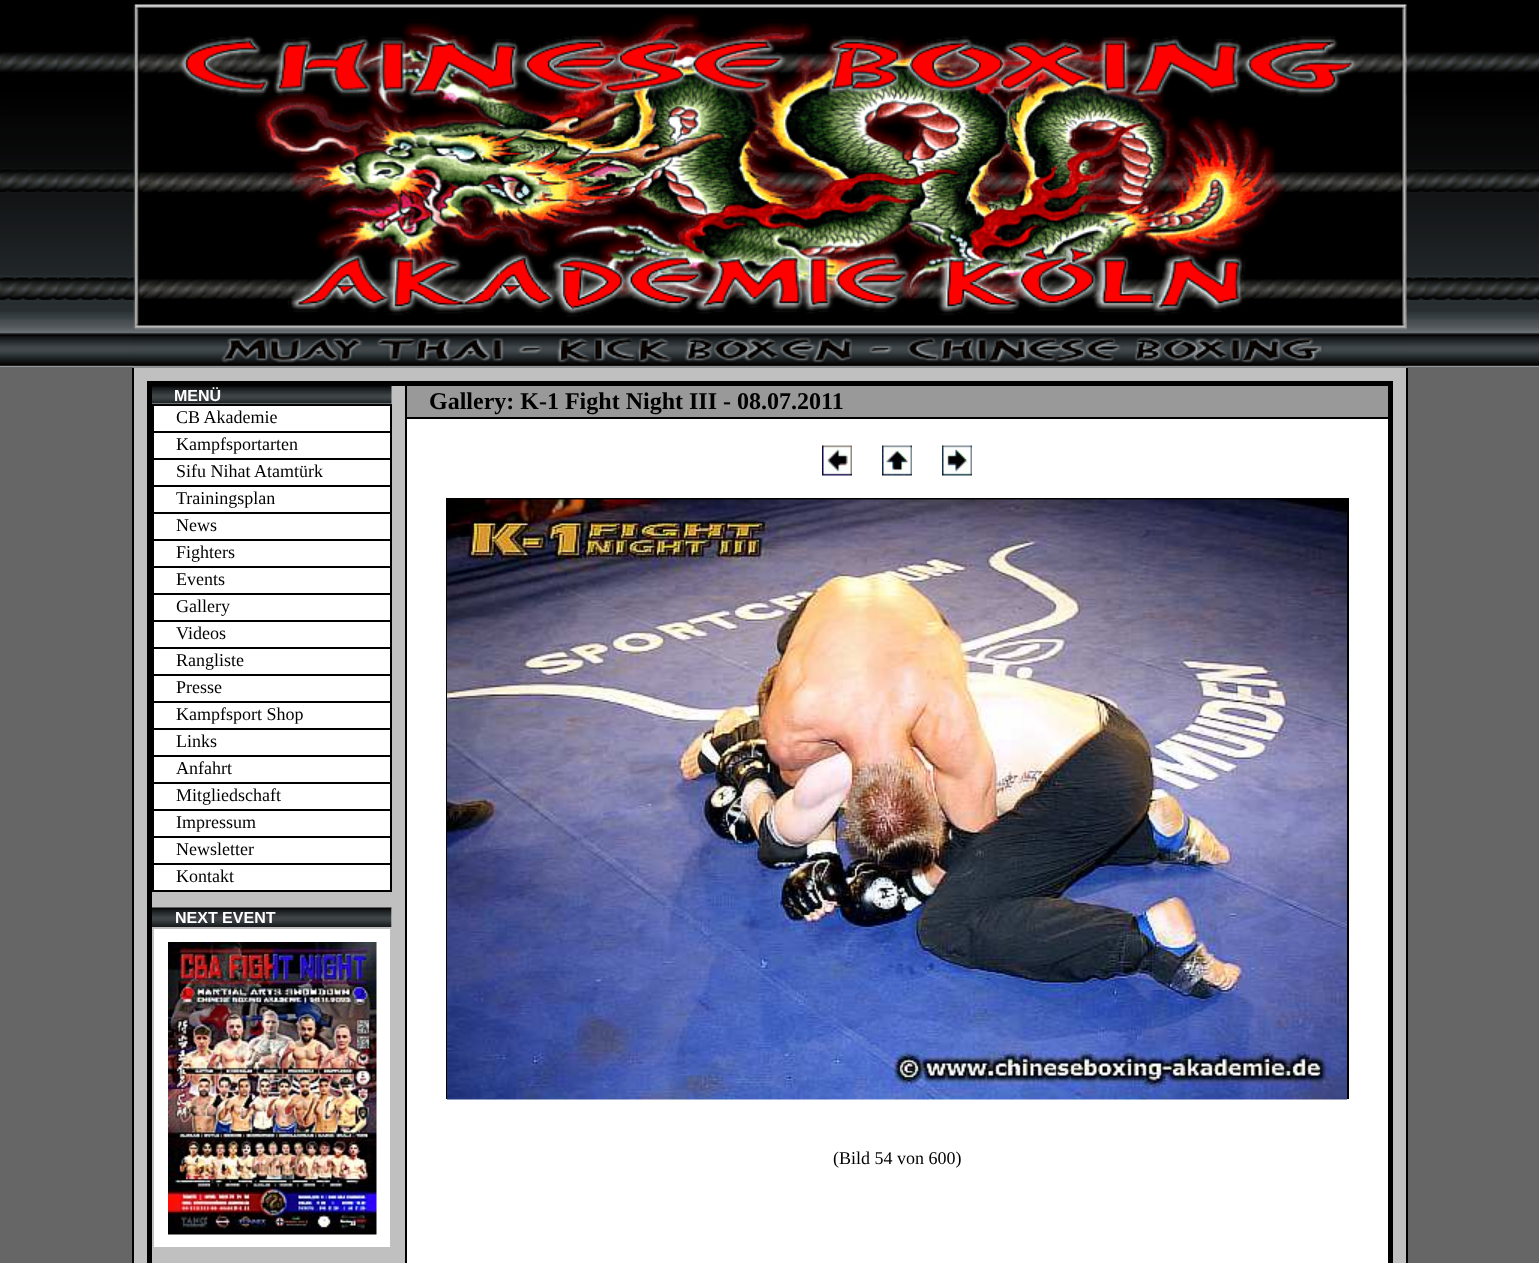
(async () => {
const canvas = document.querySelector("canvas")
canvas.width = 1539
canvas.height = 1263
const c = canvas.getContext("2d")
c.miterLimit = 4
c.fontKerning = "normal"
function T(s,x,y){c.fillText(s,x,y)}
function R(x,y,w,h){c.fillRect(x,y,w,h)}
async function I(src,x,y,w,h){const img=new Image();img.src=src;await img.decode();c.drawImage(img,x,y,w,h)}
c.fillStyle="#000"
R(0,0,1539,1263)
await I("1.png",0,52,1539,316)
await I("2.png",133,4,1274,325)
await I("3.png",133,328,1274,40)
c.fillStyle="#666"
R(0,368,1539,895)
c.fillStyle="#c0c0c0"
R(134,368,1272,895)
c.fillStyle="#000"
R(1406,368,2,895)
R(132,368,2,895)
R(405,417,984,2)
R(405,383,2,880)
R(147,381,1245,5)
R(1388,381,5,882)
R(147,381,5,882)
await I("4.png",152,386,240,18)
c.font="bold 16px Liberation Sans"
c.fillStyle="#fff"
T("MENÜ",174,401)
c.fillStyle="#000"
R(152,404,240,2)
R(390,404,2,487)
R(152,890,240,2)
R(152,404,2,487)
c.fillStyle="#fff"
R(154,406,236,25)
c.font="18px Liberation Serif"
c.fillStyle="#000"
T("CB Akademie",176,423)
c.fillStyle="#fff"
R(154,433,236,25)
c.fillStyle="#000"
R(152,431,240,2)
T("Kampfsportarten",176,450)
c.fillStyle="#fff"
R(154,460,236,25)
c.fillStyle="#000"
R(152,458,240,2)
T("Sifu Nihat Atamtürk",176,477)
c.fillStyle="#fff"
R(154,487,236,25)
c.fillStyle="#000"
R(152,485,240,2)
T("Trainingsplan",176,504)
c.fillStyle="#fff"
R(154,514,236,25)
c.fillStyle="#000"
R(152,512,240,2)
T("News",176,531)
c.fillStyle="#fff"
R(154,541,236,25)
c.fillStyle="#000"
R(152,539,240,2)
T("Fighters",176,558)
c.fillStyle="#fff"
R(154,568,236,25)
c.fillStyle="#000"
R(152,566,240,2)
T("Events",176,585)
c.fillStyle="#fff"
R(154,595,236,25)
c.fillStyle="#000"
R(152,593,240,2)
T("Gallery",176,612)
c.fillStyle="#fff"
R(154,622,236,25)
c.fillStyle="#000"
R(152,620,240,2)
T("Videos",176,639)
c.fillStyle="#fff"
R(154,649,236,25)
c.fillStyle="#000"
R(152,647,240,2)
T("Rangliste",176,666)
c.fillStyle="#fff"
R(154,676,236,25)
c.fillStyle="#000"
R(152,674,240,2)
T("Presse",176,693)
c.fillStyle="#fff"
R(154,703,236,25)
c.fillStyle="#000"
R(152,701,240,2)
T("Kampfsport Shop",176,720)
c.fillStyle="#fff"
R(154,730,236,25)
c.fillStyle="#000"
R(152,728,240,2)
T("Links",176,747)
c.fillStyle="#fff"
R(154,757,236,25)
c.fillStyle="#000"
R(152,755,240,2)
T("Anfahrt",176,774)
c.fillStyle="#fff"
R(154,784,236,25)
c.fillStyle="#000"
R(152,782,240,2)
T("Mitgliedschaft",176,801)
c.fillStyle="#fff"
R(154,811,236,25)
c.fillStyle="#000"
R(152,809,240,2)
T("Impressum",176,828)
c.fillStyle="#fff"
R(154,838,236,25)
c.fillStyle="#000"
R(152,836,240,2)
T("Newsletter",176,855)
c.fillStyle="#fff"
R(154,865,236,25)
c.fillStyle="#000"
R(152,863,240,2)
T("Kontakt",176,882)
c.fillStyle="#fff"
R(391,908,1,19)
await I("5.png",152,907,240,20)
c.font="bold 16px Liberation Sans"
T("NEXT EVENT",175,923)
R(154,929,236,318)
await I("6.png",168,942,209,293)
R(407,419,981,844)
c.fillStyle="#999"
R(407,386,981,31)
c.font="bold 24px Liberation Serif"
c.fillStyle="#000"
T("Gallery: K-1 Fight Night III - 08.07.2011",429,409)
await I("7.png",822,445,30,31)
await I("8.png",882,445,30,31)
await I("9.png",942,445,30,31)
R(446,498,903,2)
R(1347,498,2,600)
R(446,1097,903,2)
R(446,498,2,600)
await I("10.png",447,499,900,601)
c.font="18px Liberation Serif"
T("(Bild 54 von 600)",833,1164)
})()
